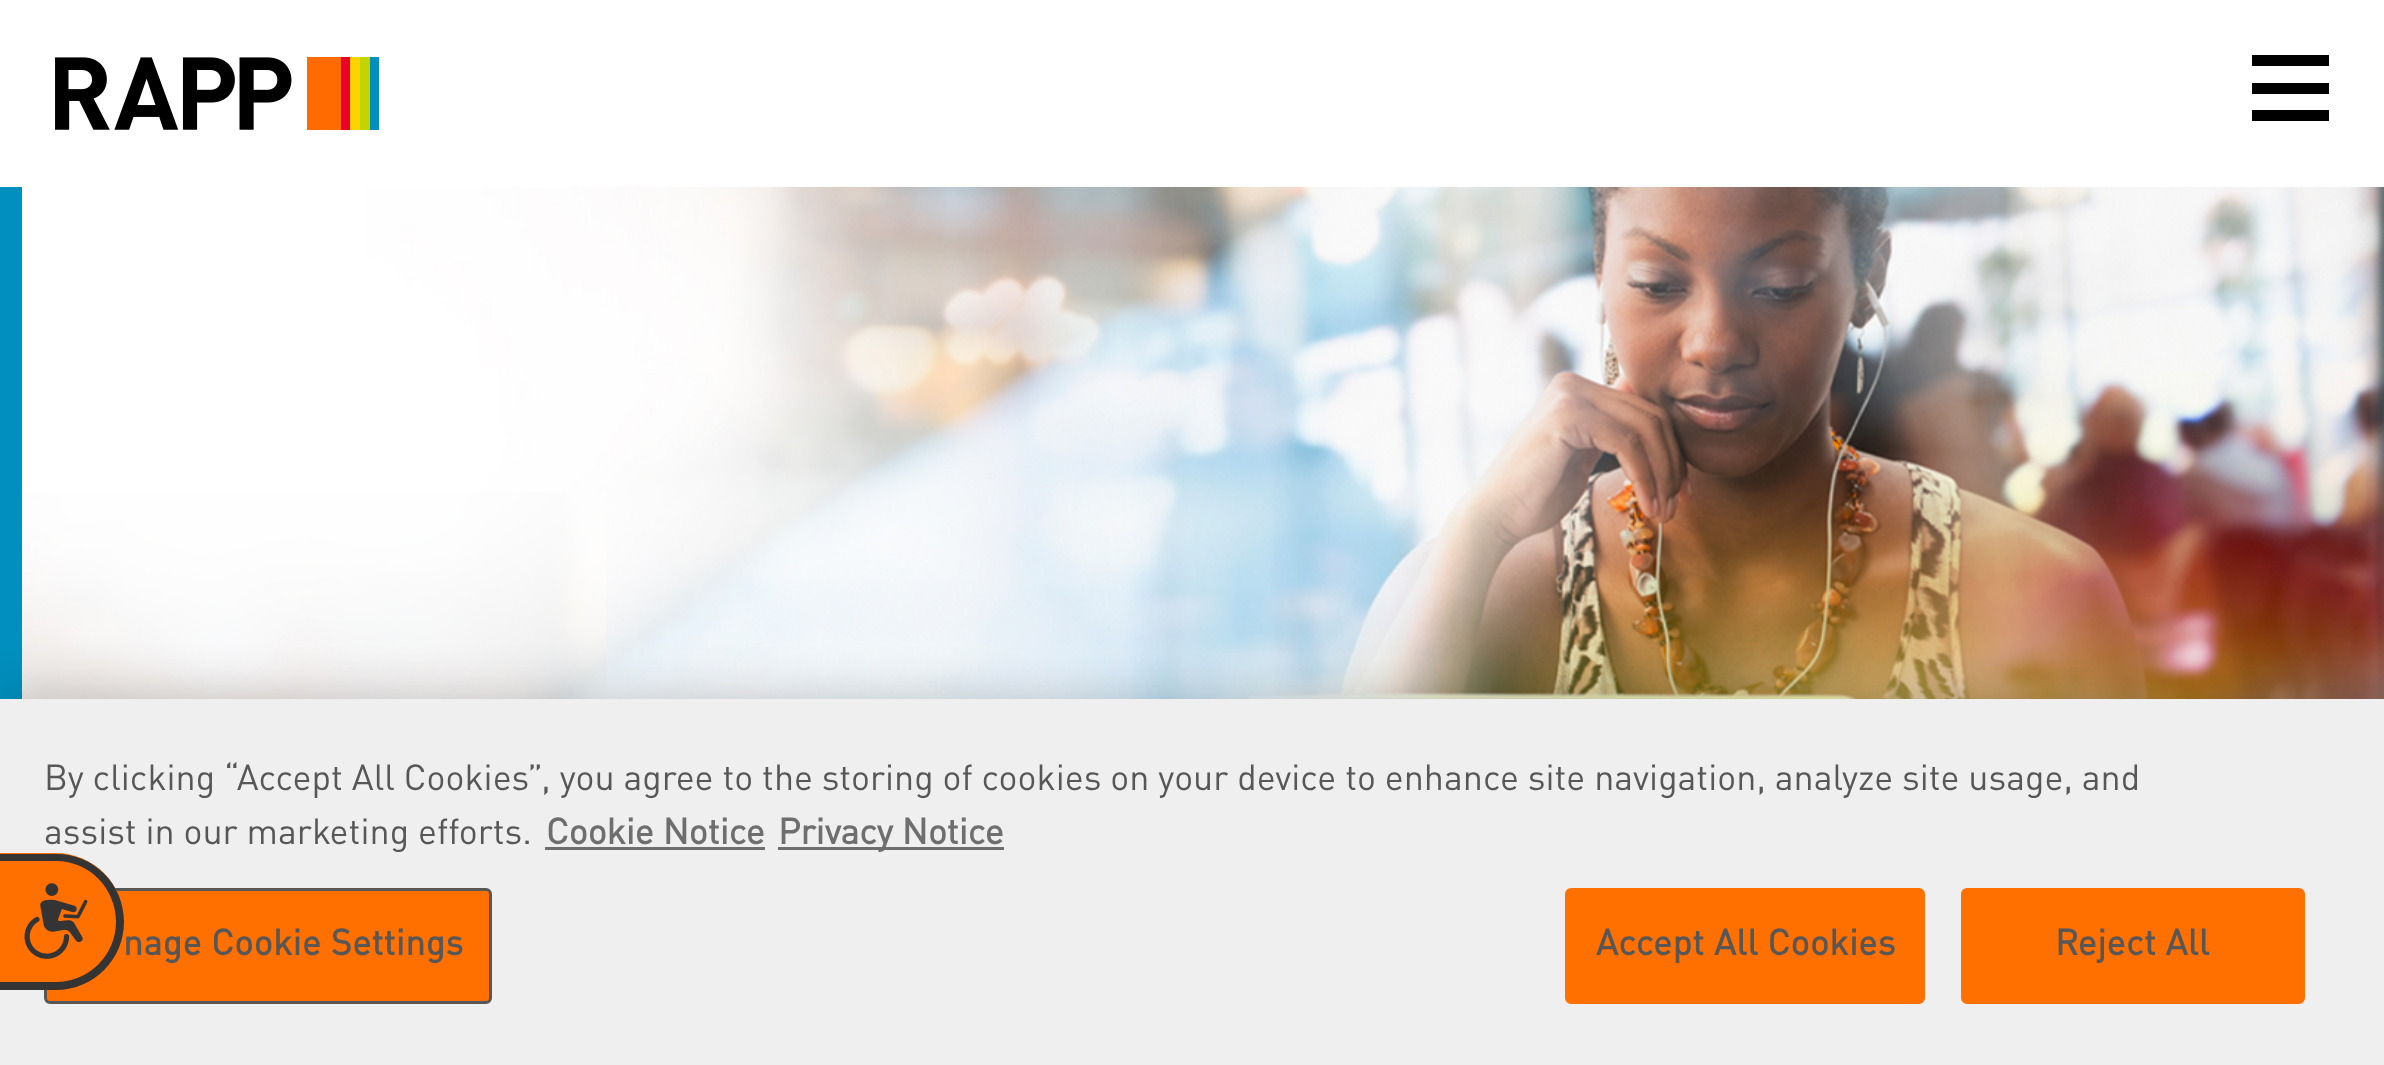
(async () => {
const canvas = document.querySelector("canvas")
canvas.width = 2384
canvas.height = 1065
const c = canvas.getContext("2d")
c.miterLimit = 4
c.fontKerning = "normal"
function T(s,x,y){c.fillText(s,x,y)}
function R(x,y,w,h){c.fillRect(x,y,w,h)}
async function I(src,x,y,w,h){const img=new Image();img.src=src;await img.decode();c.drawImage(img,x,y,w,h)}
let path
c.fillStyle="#008fbe"
R(0,0,2384,1065)
c.fillStyle="#fff"
R(0,0,2384,187)
await I("1.png",55,57,324,73)
c.fillStyle="#000"
R(2252,55,77,11)
R(2252,83,77,11)
R(2252,110,77,11)
await I("2.png",22,187,2362,512)
c.fillStyle="#00000033"
c.filter="blur(25px)"
c.beginPath()
c.rect(0,699,2384,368)
c.fill()
c.filter="none"
c.fillStyle="#efefef"
R(0,699,2384,366)
c.font="35.77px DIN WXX"
c.fillStyle="#575757"
T("By clicking “Accept All Cookies”, you agree to the storing of cookies on your device to enhance site navigation, analyze site usage, and",44,790)
T("assist in our marketing efforts.",44,844)
c.font="bold 35.77px DIN WXX"
c.fillStyle="#6e6e6e"
T("Cookie Notice",546,844)
R(545,847,220,3)
R(778,847,226,3)
T("Privacy Notice",778,844)
c.fillStyle="#ff7000"
c.beginPath()
c.roundRect(45.5,889.5,445,113,4.5)
c.fill()
c.strokeStyle="#575757"
c.lineWidth=3
c.stroke()
c.letterSpacing="0.4px"
c.fillStyle="#575757"
T("nage Cookie Settings",123,955)
c.fillStyle="#ff7000"
c.beginPath()
c.roundRect(1566.5,889.5,357,113,4.5)
c.fill()
c.strokeStyle="#ff7000"
c.stroke()
c.fillStyle="#575757"
T("Accept All Cookies",1596,955)
c.fillStyle="#ff7000"
c.beginPath()
c.roundRect(1962.5,889.5,341,113,4.5)
c.fill()
c.stroke()
c.fillStyle="#575757"
T("Reject All",2055,955)
c.fillStyle="#ff7000"
c.beginPath()
c.roundRect(0,853,124,137,[0,68.5,68.5,0])
c.fill()
c.fillStyle="#343434"
path = new Path2D("M0 854h56c38 0 68 30 68 68c0 37-30 68-68 68h-56zm0 7h56c33 0 60 27 60 61c0 33-27 60-60 60h-56z")
c.fill(path,"evenodd")
await I("3.png",24,883,64,76)
})()
